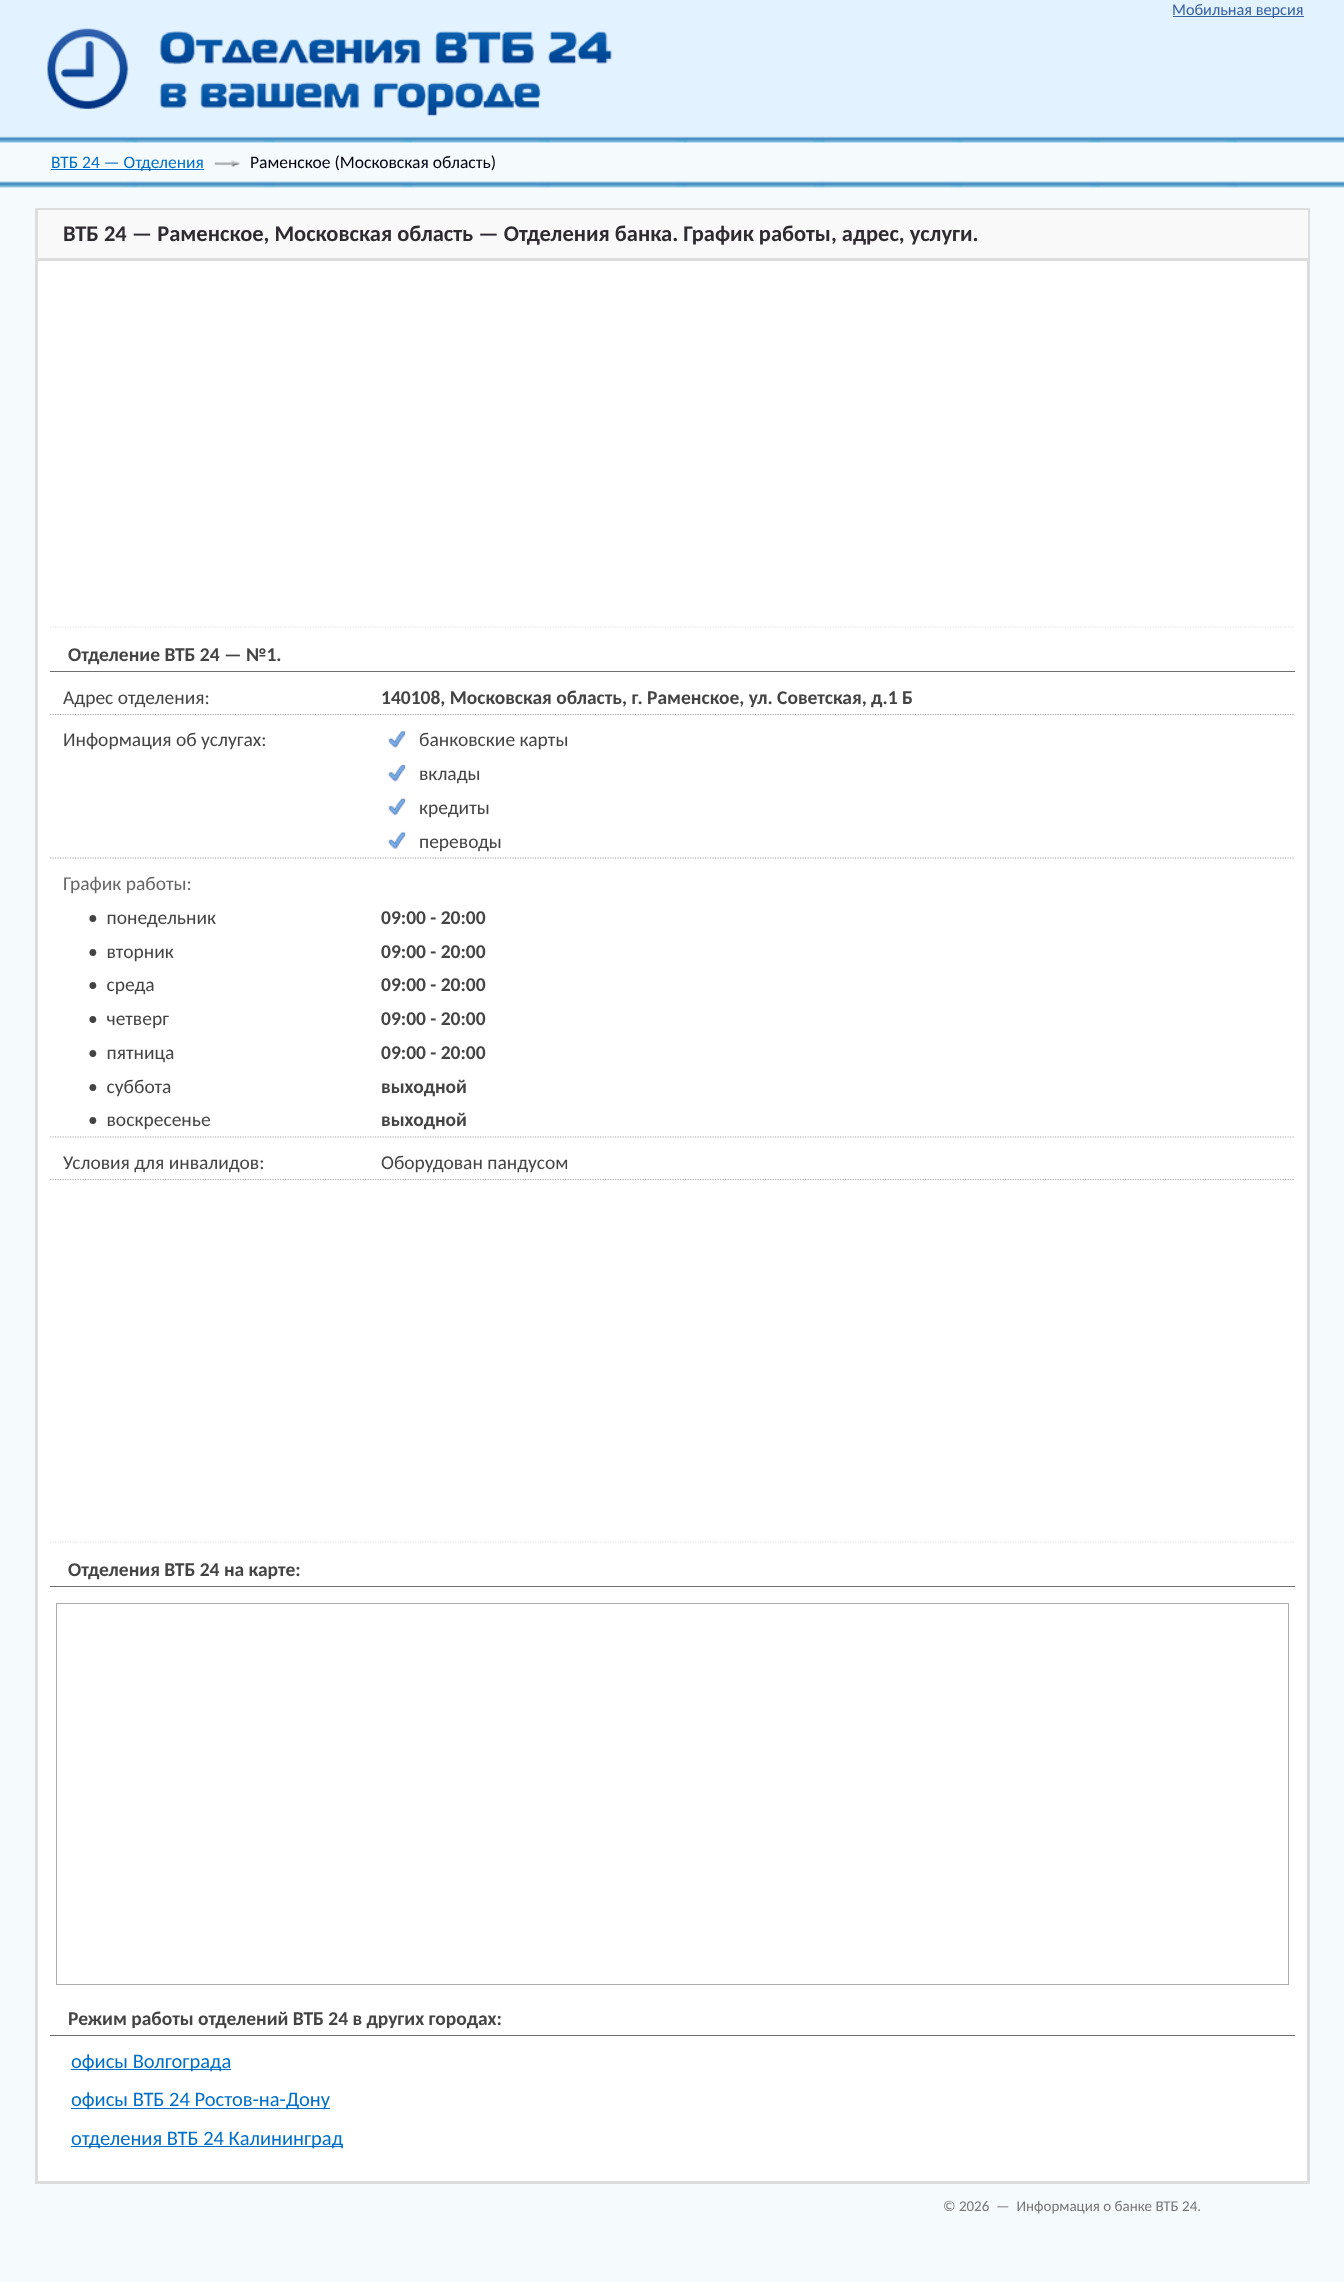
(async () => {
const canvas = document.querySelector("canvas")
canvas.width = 1344
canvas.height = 2282
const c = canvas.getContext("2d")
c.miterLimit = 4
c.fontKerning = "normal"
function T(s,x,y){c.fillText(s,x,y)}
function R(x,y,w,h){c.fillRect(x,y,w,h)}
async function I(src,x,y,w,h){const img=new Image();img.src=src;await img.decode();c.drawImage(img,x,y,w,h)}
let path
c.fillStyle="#f5fafc"
R(0,0,1344,2282)
await I("1.png",0,0,1344,188)
c.fillStyle="#3861a1"
R(1173,16,131,1)
c.font="16.25px Carlito"
T("Мобильная версия",1172,15)
await I("2.png",47,28,565,89)
c.fillStyle="#006fc7"
R(51,169,153,1)
c.font="17.5px Carlito"
T("ВТБ 24 — Отделения",51,168)
await I("3.png",214,160,26,7)
c.fillStyle="#020010"
T("Раменское (Московская область)",250,168)
c.fillStyle="#fff"
R(38,261,1269,1920)
c.strokeStyle="#ddd"
c.lineWidth=3
c.strokeRect(36.5,209.5,1272,1973)
c.fillStyle="#f9f9f9"
R(38,210,1270,48)
c.fillStyle="#ddd"
R(38,258,1270,3)
c.font="bold 22.5px Carlito"
c.fillStyle="#2f2b31"
T("ВТБ 24 — Раменское, Московская область — Отделения банка. График работы, адрес, услуги.",63,241)
path = new Path2D("M50 627h1245")
c.lineWidth=1.2
c.setLineDash([1.25,1.25])
c.stroke(path)
c.fillStyle="#707070"
R(50,671,1245,1)
c.font="bold 19.5px Carlito"
c.fillStyle="#444"
T("Отделение ВТБ 24 — №1.",68,661)
path = new Path2D("M50 714.5h1245")
c.strokeStyle="#aaa"
c.stroke(path)
c.font="19.5px Carlito"
T("Адрес отделения:",63,704)
c.font="bold 19.5px Carlito"
T("140108, Московская область, г. Раменское, ул. Советская, д.1 Б",381,704)
path = new Path2D("M50 858h1245")
c.stroke(path)
c.font="19.5px Carlito"
T("Информация об услугах:",63,746)
await I("4.png",388,731,18,17)
T("банковские карты",419,746)
await I("5.png",388,764,18,18)
T("вклады",419,780)
await I("6.png",388,798,18,18)
T("кредиты",419,814)
await I("7.png",388,831,18,18)
T("переводы",419,848)
path = new Path2D("M50 1137h1245")
c.stroke(path)
c.fillStyle="#666"
T("График работы:",63,890)
c.fillStyle="#444"
T("•  понедельник",88,924)
c.font="bold 19.5px Carlito"
T("09:00 - 20:00",381,924)
c.font="19.5px Carlito"
T("•  вторник",88,958)
c.font="bold 19.5px Carlito"
T("09:00 - 20:00",381,958)
c.font="19.5px Carlito"
T("•  среда",88,991)
c.font="bold 19.5px Carlito"
T("09:00 - 20:00",381,991)
c.font="19.5px Carlito"
T("•  четверг",88,1025)
c.font="bold 19.5px Carlito"
T("09:00 - 20:00",381,1025)
c.font="19.5px Carlito"
T("•  пятница",88,1059)
c.font="bold 19.5px Carlito"
T("09:00 - 20:00",381,1059)
c.font="19.5px Carlito"
T("•  суббота",88,1093)
c.font="bold 19.5px Carlito"
T("выходной",381,1093)
c.font="19.5px Carlito"
T("•  воскресенье",88,1126)
c.font="bold 19.5px Carlito"
T("выходной",381,1126)
path = new Path2D("M50 1179.5h1245")
c.stroke(path)
c.font="19.5px Carlito"
T("Условия для инвалидов:",63,1169)
T("Оборудован пандусом",381,1169)
path = new Path2D("M50 1542h1245")
c.strokeStyle="#ddd"
c.stroke(path)
c.fillStyle="#707070"
R(50,1586,1245,1)
c.font="bold 19.5px Carlito"
c.fillStyle="#444"
T("Отделения ВТБ 24 на карте:",68,1576)
c.strokeStyle="#acacac"
c.lineWidth=1
c.setLineDash([])
c.strokeRect(56.5,1603.5,1232,381)
c.fillStyle="#707070"
R(50,2035,1245,1)
c.fillStyle="#444"
T("Режим работы отделений ВТБ 24 в других городах:",68,2025)
c.fillStyle="#006fc7"
R(71,2069,160,1)
c.font="20.5px Carlito"
T("офисы Волгограда",71,2068)
R(71,2108,259,1)
T("офисы ВТБ 24 Ростов-на-Дону",71,2106)
R(71,2146,272,1)
T("отделения ВТБ 24 Калининград",71,2145)
c.font="15px Carlito"
c.fillStyle="#777"
T("© 2026  —  Информация о банке ВТБ 24.",943,2211)
})()
